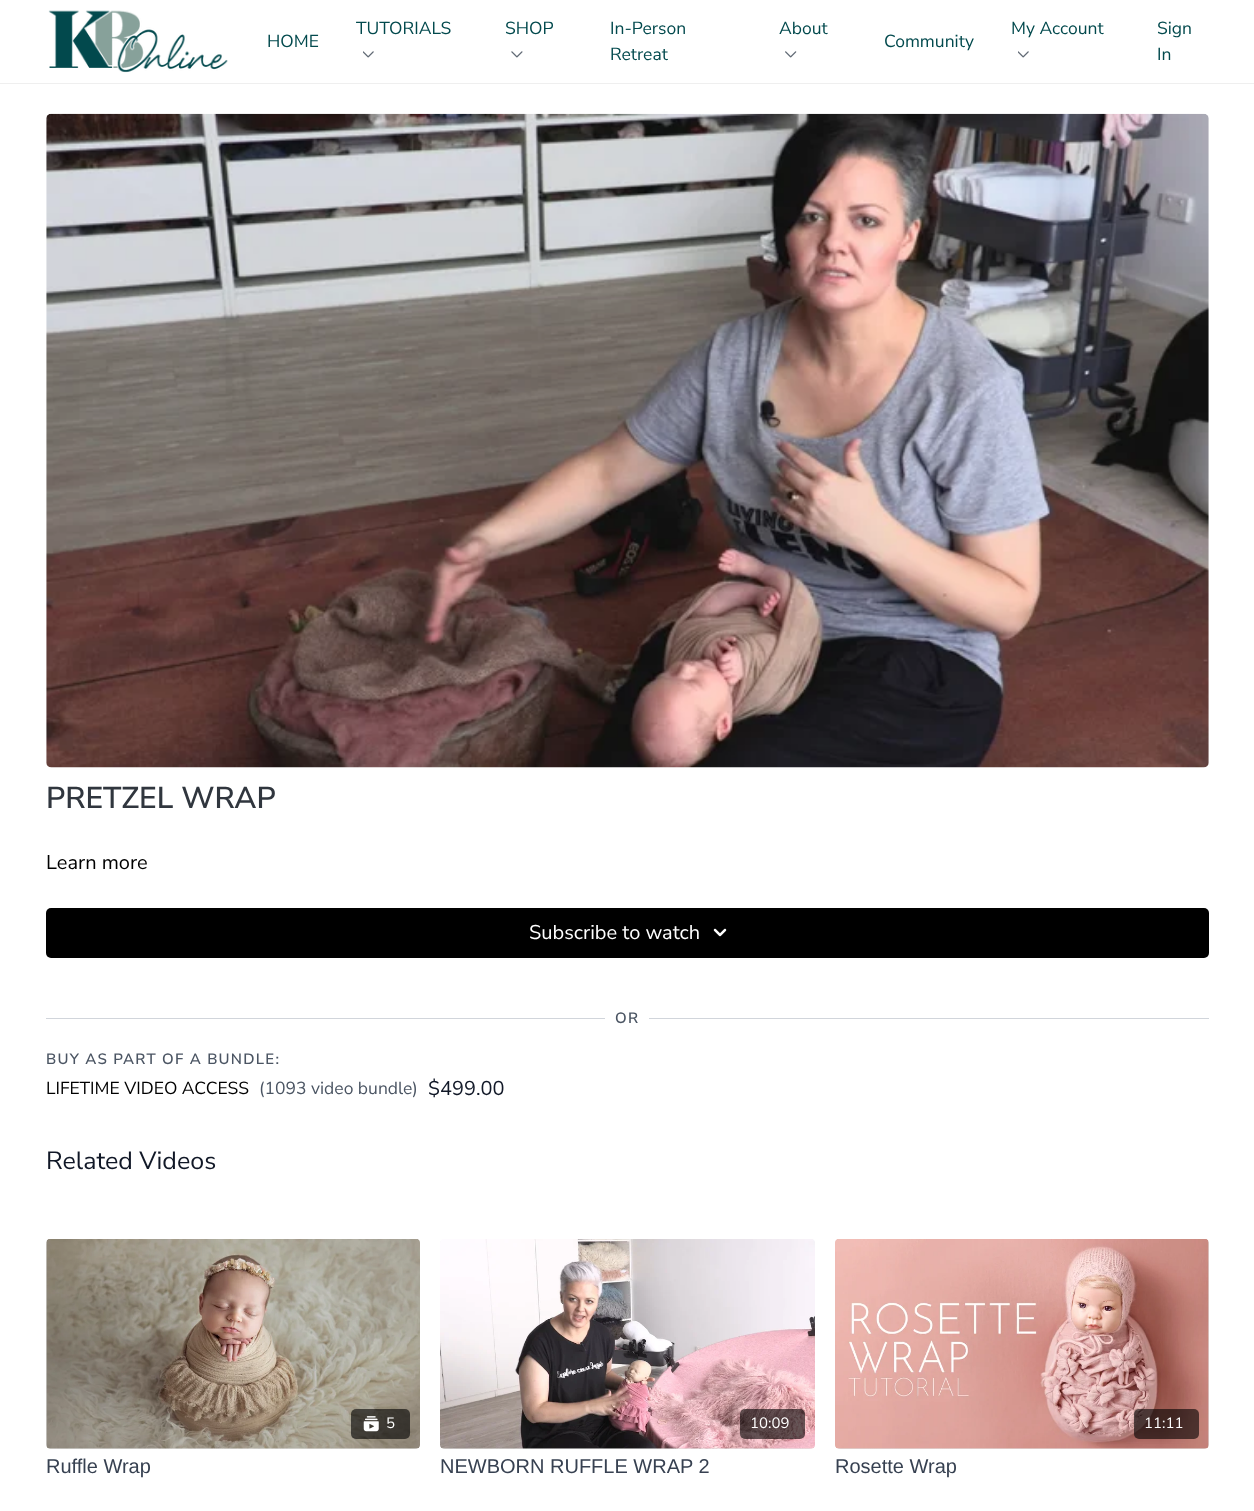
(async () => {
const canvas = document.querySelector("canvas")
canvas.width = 1254
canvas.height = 1511
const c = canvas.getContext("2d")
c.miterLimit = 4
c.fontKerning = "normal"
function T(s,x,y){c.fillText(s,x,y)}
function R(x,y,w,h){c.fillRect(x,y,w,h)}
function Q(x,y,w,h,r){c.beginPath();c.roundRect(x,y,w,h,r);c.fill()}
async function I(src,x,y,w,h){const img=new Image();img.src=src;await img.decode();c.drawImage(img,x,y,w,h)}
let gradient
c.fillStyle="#fff"
R(0,0,1254,1511)
c.fillStyle="#efefef"
R(0,83,1254,1)
await I("1.png",48,10,180,63)
c.font="17.5px Nunito Sans"
c.fillStyle="#02494d"
T("HOME",267,47)
T("TUTORIALS",356,34)
await I("2.png",363,51,11,7)
T("SHOP",505,34)
await I("3.png",511,51,12,7)
T("In-Person",610,34)
T("Retreat",610,60)
T("About",779,34)
await I("4.png",785,51,12,7)
T("Community",884,47)
T("My Account",1011,34)
await I("2.png",1018,51,11,7)
T("Sign",1157,34)
T("In",1157,60)
await I("5.png",46,113,1163,655)
c.font="600 30px Nunito Sans"
c.fillStyle="#30363e"
T("PRETZEL WRAP",46,808)
c.font="20px Nunito Sans"
c.fillStyle="#000"
T("Learn more",46,869)
Q(46,908,1163,50,5)
c.fillStyle="#fff"
T("Subscribe to watch",529,939)
await I("6.png",713,928,14,9)
c.fillStyle="#d1d5db"
R(46,1018,1163,1)
c.fillStyle="#fff"
R(605,1018,44,1)
c.letterSpacing="1.25px"
c.font="600 15px Nunito Sans"
c.fillStyle="#4b5563"
T("OR",615,1023)
T("BUY AS PART OF A BUNDLE:",46,1064)
c.letterSpacing="0px"
c.font="17.5px Nunito Sans"
c.fillStyle="#000"
T("LIFETIME VIDEO ACCESS",46,1094)
c.fillStyle="#4b5563"
T("(1093 video bundle)",259,1094)
c.font="20px Nunito Sans"
c.fillStyle="#111827"
T("$499.00",428,1095)
c.font="25px Nunito Sans"
T("Related Videos",46,1169)
gradient = c.createLinearGradient(46,1344,420,1344)
gradient.addColorStop(.08,"#dedede")
gradient.addColorStop(.18,"#e1e1e1")
gradient.addColorStop(.33,"#e3e3e3")
c.fillStyle = gradient
Q(46,1239,374,210,5)
await I("7.png",46,1239,374,210)
c.fillStyle="#00000099"
Q(351,1409,59,30,5)
await I("8.png",363,1416,16,16)
c.font="15px Nunito Sans"
c.fillStyle="#fff"
T("5",386,1428)
c.font="20px Liberation Sans"
c.fillStyle="#374151"
T("Ruffle Wrap",46,1473)
gradient = c.createLinearGradient(440,1344,815,1344)
gradient.addColorStop(.08,"#dedede")
gradient.addColorStop(.18,"#e1e1e1")
gradient.addColorStop(.33,"#e3e3e3")
c.fillStyle = gradient
Q(440,1239,375,210,5)
await I("9.png",440,1239,375,210)
c.fillStyle="#00000099"
Q(740,1409,65,30,5)
c.font="15px Nunito Sans"
c.fillStyle="#fff"
T("10:09",750,1428)
c.font="20px Liberation Sans"
c.fillStyle="#374151"
T("NEWBORN RUFFLE WRAP 2",440,1473)
gradient = c.createLinearGradient(835,1344,1209,1344)
gradient.addColorStop(.08,"#dedede")
gradient.addColorStop(.18,"#e1e1e1")
gradient.addColorStop(.33,"#e3e3e3")
c.fillStyle = gradient
Q(835,1239,374,210,5)
await I("10.png",835,1239,374,210)
c.fillStyle="#00000099"
Q(1134,1409,65,30,5)
c.font="15px Nunito Sans"
c.fillStyle="#fff"
T("11:11",1144,1428)
c.font="20px Liberation Sans"
c.fillStyle="#374151"
T("Rosette Wrap",835,1473)
})()
